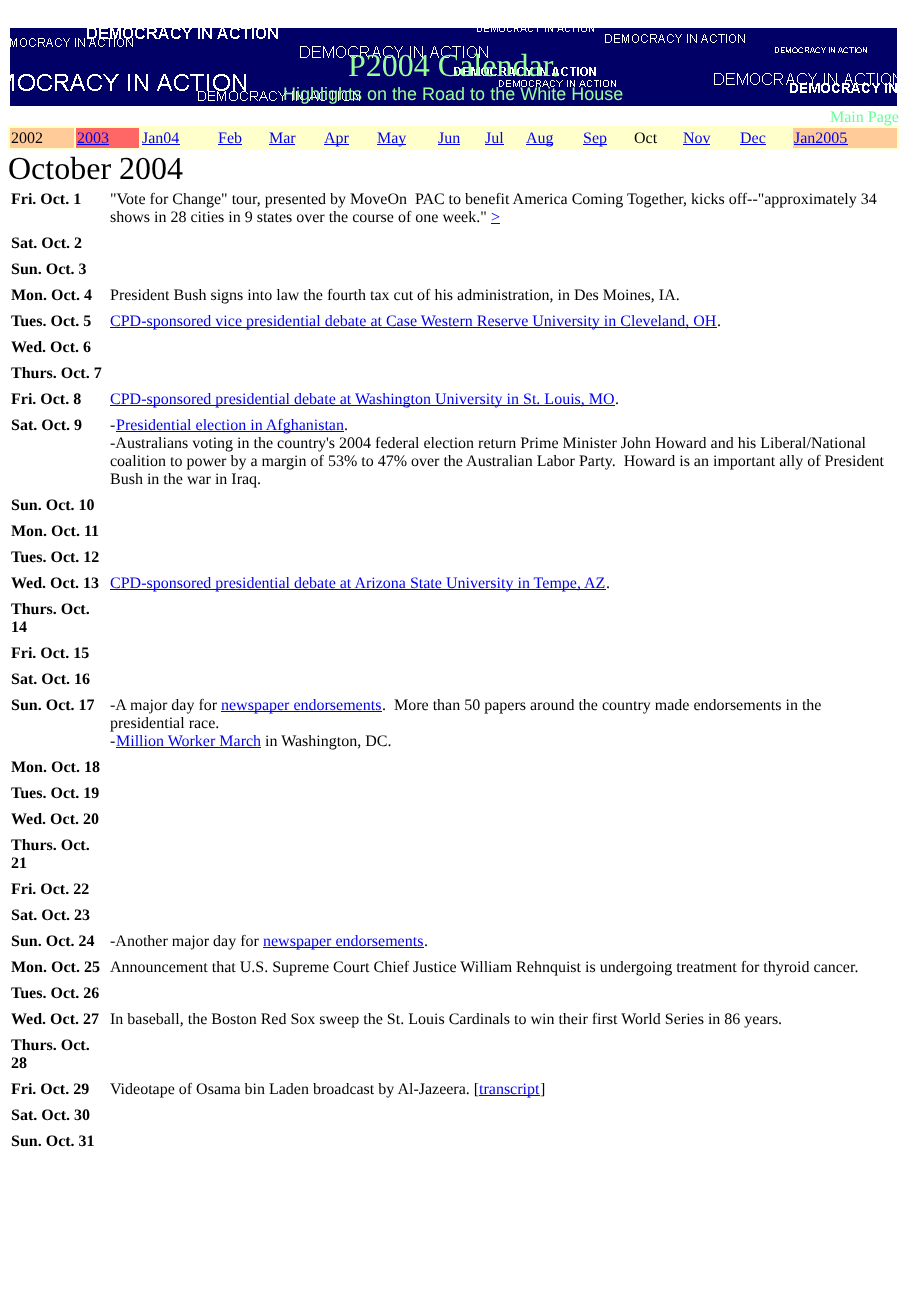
(async () => {
const canvas = document.querySelector("canvas")
canvas.width = 907
canvas.height = 1293
const c = canvas.getContext("2d")
c.miterLimit = 4
c.fontKerning = "normal"
function T(s,x,y){c.fillText(s,x,y)}
function R(x,y,w,h){c.fillRect(x,y,w,h)}
async function I(src,x,y,w,h){const img=new Image();img.src=src;await img.decode();c.drawImage(img,x,y,w,h)}
c.fillStyle="#fff"
R(0,0,907,1293)
await I("1.png",10,28,887,78)
c.font="32px Liberation Serif"
c.fillStyle="#9f9"
T("P2004 Calendar.",348,76)
c.font="18px Liberation Sans"
T("Highlights on the Road to the White House",283,100)
c.font="16px Liberation Serif"
c.fillStyle="#6f9"
T("Main Page",830,122)
c.fillStyle="#ffc"
R(8,126,891,24)
c.fillStyle="#fc9"
R(10,128,64,20)
c.fillStyle="#000"
T("2002",11,143)
c.fillStyle="#f66"
R(76,128,63,20)
c.fillStyle="#00e"
T("2003",77,143)
R(77,144,32,1)
T("Jan04",142,143)
R(142,144,38,1)
T("Feb",218,143)
R(218,144,24,1)
T("Mar",269,143)
R(269,144,26,1)
R(324,144,25,1)
T("Apr",324,143)
R(377,144,29,1)
T("May",377,143)
T("Jun",438,143)
R(438,144,22,1)
T("Jul",485,143)
R(485,144,19,1)
R(526,144,27,1)
T("Aug",526,143)
R(583,144,24,1)
T("Sep",583,143)
c.fillStyle="#000"
T("Oct",634,143)
c.fillStyle="#00e"
T("Nov",683,143)
R(683,144,27,1)
T("Dec",740,143)
R(740,144,26,1)
c.fillStyle="#fc9"
R(793,128,104,20)
c.fillStyle="#00e"
T("Jan2005",794,143)
R(794,144,54,1)
c.font="32px Liberation Serif"
c.fillStyle="#000"
T("October 2004",8,179)
c.font="bold 16px Liberation Serif"
T("Fri. Oct. 1",11,204)
c.font="16px Liberation Serif"
T("\"Vote for Change\" tour, presented by MoveOn  PAC to benefit America Coming Together, kicks off--\"approximately 34",110,204)
T("shows in 28 cities in 9 states over the course of one week.\"",110,222)
c.fillStyle="#00e"
T(">",491,222)
R(491,223,9,1)
c.font="bold 16px Liberation Serif"
c.fillStyle="#000"
T("Sat. Oct. 2",11,248)
T("Sun. Oct. 3",11,274)
T("Mon. Oct. 4",11,300)
c.font="16px Liberation Serif"
T("President Bush signs into law the fourth tax cut of his administration, in Des Moines, IA.",110,300)
c.font="bold 16px Liberation Serif"
T("Tues. Oct. 5",11,326)
c.fillStyle="#00e"
R(110,327,607,1)
c.font="16px Liberation Serif"
T("CPD-sponsored vice presidential debate at Case Western Reserve University in Cleveland, OH",110,326)
c.fillStyle="#000"
T(".",717,326)
c.font="bold 16px Liberation Serif"
T("Wed. Oct. 6",11,352)
T("Thurs. Oct. 7",11,378)
T("Fri. Oct. 8",11,404)
c.fillStyle="#00e"
R(110,405,505,1)
c.font="16px Liberation Serif"
T("CPD-sponsored presidential debate at Washington University in St. Louis, MO",110,404)
c.fillStyle="#000"
T(".",615,404)
c.font="bold 16px Liberation Serif"
T("Sat. Oct. 9",11,430)
c.font="16px Liberation Serif"
T("-",110,430)
c.fillStyle="#00e"
R(116,431,228,1)
T("Presidential election in Afghanistan",116,430)
c.fillStyle="#000"
T(".",344,430)
T("-Australians voting in the country's 2004 federal election return Prime Minister John Howard and his Liberal/National",110,448)
T("coalition to power by a margin of 53% to 47% over the Australian Labor Party.  Howard is an important ally of President",110,466)
T("Bush in the war in Iraq.",110,484)
c.font="bold 16px Liberation Serif"
T("Sun. Oct. 10",11,510)
T("Mon. Oct. 11",11,536)
T("Tues. Oct. 12",11,562)
T("Wed. Oct. 13",11,588)
c.fillStyle="#00e"
R(110,589,496,1)
c.font="16px Liberation Serif"
T("CPD-sponsored presidential debate at Arizona State University in Tempe, AZ",110,588)
c.fillStyle="#000"
T(".",606,588)
c.font="bold 16px Liberation Serif"
T("Thurs. Oct.",11,614)
T("14",11,632)
T("Fri. Oct. 15",11,658)
T("Sat. Oct. 16",11,684)
T("Sun. Oct. 17",11,710)
c.font="16px Liberation Serif"
T("-A major day for",110,710)
c.fillStyle="#00e"
R(221,711,161,1)
T("newspaper endorsements",221,710)
c.fillStyle="#000"
T(".  More than 50 papers around the country made endorsements in the",382,710)
T("presidential race.",110,728)
T("-",110,746)
c.fillStyle="#00e"
T("Million Worker March",116,746)
R(116,747,145,1)
c.fillStyle="#000"
T("in Washington, DC.",265,746)
c.font="bold 16px Liberation Serif"
T("Mon. Oct. 18",11,772)
T("Tues. Oct. 19",11,798)
T("Wed. Oct. 20",11,824)
T("Thurs. Oct.",11,850)
T("21",11,868)
T("Fri. Oct. 22",11,894)
T("Sat. Oct. 23",11,920)
T("Sun. Oct. 24",11,946)
c.font="16px Liberation Serif"
T("-Another major day for",110,946)
c.fillStyle="#00e"
R(263,947,161,1)
T("newspaper endorsements",263,946)
c.fillStyle="#000"
T(".",424,946)
c.font="bold 16px Liberation Serif"
T("Mon. Oct. 25",11,972)
c.font="16px Liberation Serif"
T("Announcement that U.S. Supreme Court Chief Justice William Rehnquist is undergoing treatment for thyroid cancer.",110,972)
c.font="bold 16px Liberation Serif"
T("Tues. Oct. 26",11,998)
T("Wed. Oct. 27",11,1024)
c.font="16px Liberation Serif"
T("In baseball, the Boston Red Sox sweep the St. Louis Cardinals to win their first World Series in 86 years.",110,1024)
c.font="bold 16px Liberation Serif"
T("Thurs. Oct.",11,1050)
T("28",11,1068)
T("Fri. Oct. 29",11,1094)
c.font="16px Liberation Serif"
T("Videotape of Osama bin Laden broadcast by Al-Jazeera. [",110,1094)
c.fillStyle="#00e"
R(479,1095,61,1)
T("transcript",479,1094)
c.fillStyle="#000"
T("]",540,1094)
c.font="bold 16px Liberation Serif"
T("Sat. Oct. 30",11,1120)
T("Sun. Oct. 31",11,1146)
})()
